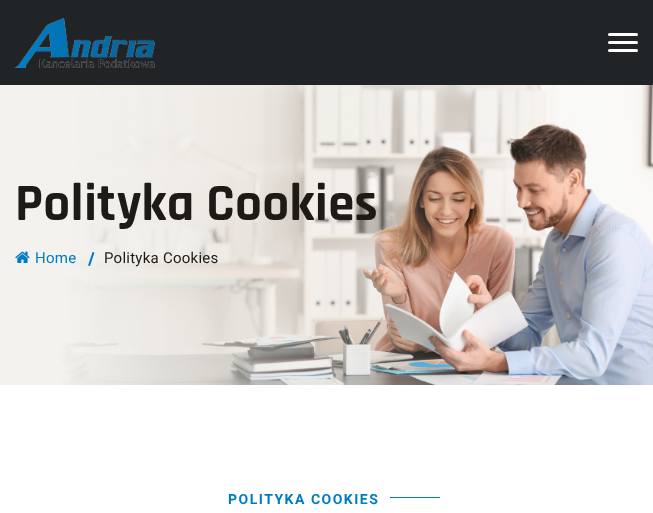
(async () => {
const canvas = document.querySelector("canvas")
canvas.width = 653
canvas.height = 513
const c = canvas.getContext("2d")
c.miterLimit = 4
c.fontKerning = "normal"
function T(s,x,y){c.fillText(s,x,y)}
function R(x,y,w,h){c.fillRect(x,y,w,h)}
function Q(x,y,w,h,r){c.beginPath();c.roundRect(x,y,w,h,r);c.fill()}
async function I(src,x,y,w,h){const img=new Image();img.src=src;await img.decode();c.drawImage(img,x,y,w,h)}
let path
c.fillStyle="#fff"
R(0,0,653,513)
c.fillStyle="#202426"
R(0,0,653,85)
await I("1.png",15,18,140,50)
c.fillStyle="#fff"
Q(608,41,30,3,1.5)
Q(608,33,30,3,1.5)
Q(608,49,30,3,1.5)
await I("2.png",0,85,653,300)
c.letterSpacing="0.25px"
c.font="bold 53px Rajdhani"
c.fillStyle="#1e1b16"
T("Polityka Cookies",15,220)
await I("3.png",15,251,15,12)
c.font="15px Roboto"
c.fillStyle="#007cc2"
T("Home",35,263)
c.fillStyle="#037cc5"
path = new Path2D("M92.5 252l2 .5l-4.5 13.5l-2-.5z")
c.fill(path)
c.fillStyle="#1e1b16"
T("Polityka Cookies",104,263)
c.letterSpacing="1.5px"
c.font="bold 14px Roboto"
c.fillStyle="#007cc2"
T("POLITYKA COOKIES",228,504)
c.fillStyle="#037cc5"
R(390,497,50,1)
})()
